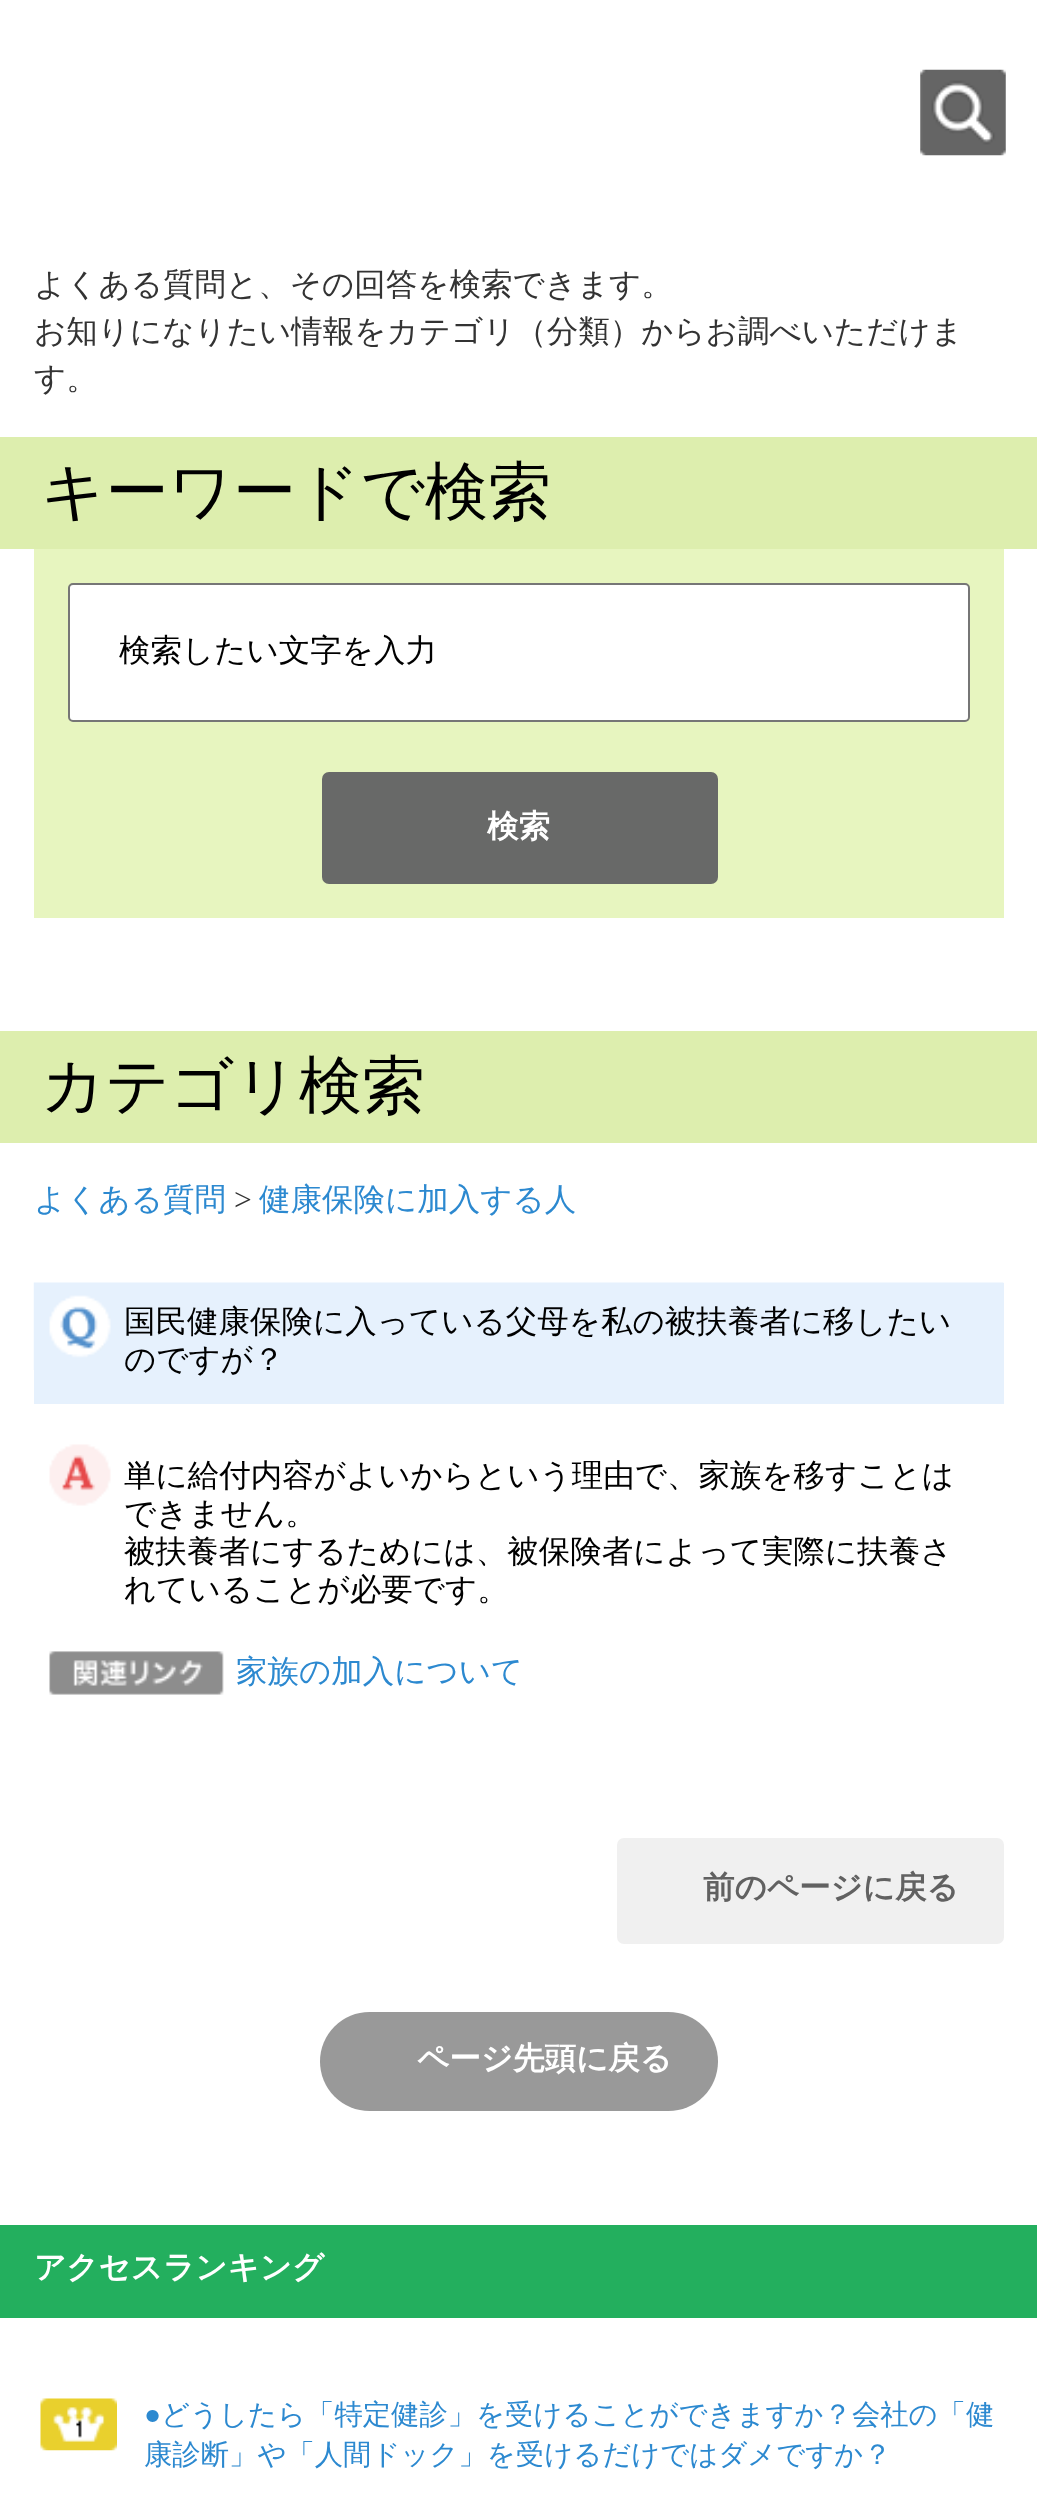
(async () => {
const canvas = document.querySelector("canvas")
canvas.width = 1037
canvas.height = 2493
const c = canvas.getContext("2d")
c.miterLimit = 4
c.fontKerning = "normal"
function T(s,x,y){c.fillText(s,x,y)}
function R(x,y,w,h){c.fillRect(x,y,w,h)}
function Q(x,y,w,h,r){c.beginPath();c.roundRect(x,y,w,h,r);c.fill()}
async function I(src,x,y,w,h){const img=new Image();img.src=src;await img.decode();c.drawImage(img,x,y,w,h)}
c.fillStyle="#fff"
R(0,0,1037,2493)
await I("1.png",920,69,86,87)
c.font="500 31.5px WenQuanYi Zen Hei"
c.fillStyle="#333"
T("よくある質問と、その回答を検索できます。",34,295)
T("お知りになりたい情報をカテゴリ（分類）からお調べいただけま",34,342)
T("す。",34,389)
c.fillStyle="#ddeeae"
R(0,437,1037,112)
c.font="500 63px WenQuanYi Zen Hei"
c.fillStyle="#000"
T("キーワードで検索",41,513)
c.fillStyle="#e7f5bf"
R(34,549,970,369)
c.fillStyle="#fff"
c.beginPath()
c.roundRect(69,584,900,137,4)
c.fill()
c.strokeStyle="#767676"
c.lineWidth=2
c.stroke()
c.font="500 31.5px WenQuanYi Zen Hei"
c.fillStyle="#000"
T("検索したい文字を入力",119,661)
c.fillStyle="#686968"
Q(322,772,396,112,7)
c.font="bold 31.5px WenQuanYi Zen Hei"
c.fillStyle="#fff"
T("検索",487,837)
c.fillStyle="#ddeeae"
R(0,1031,1037,112)
c.font="500 63px WenQuanYi Zen Hei"
c.fillStyle="#000"
T("カテゴリ検索",41,1107)
c.font="500 31.5px WenQuanYi Zen Hei"
c.fillStyle="#2c89d0"
T("よくある質問",34,1210)
c.font="31.5px Liberation Serif"
c.fillStyle="#333"
T(">",234,1210)
c.font="500 31.5px WenQuanYi Zen Hei"
c.fillStyle="#2c89d0"
T("健康保険に加入する人",259,1210)
c.fillStyle="#e6f1fd"
R(34,1283,970,121)
await I("2.png",33,1282,971,88)
c.fillStyle="#000"
T("国民健康保険に入っている父母を私の被扶養者に移したい",124,1332)
T("のですが？",124,1370)
await I("3.png",49,1444,62,62)
T("単に給付内容がよいからという理由で、家族を移すことは",124,1486)
T("できません。",124,1524)
T("被扶養者にするためには、被保険者によって実際に扶養さ",124,1562)
T("れていることが必要です。",124,1600)
await I("4.png",49,1651,175,44)
c.fillStyle="#2c89d0"
T("家族の加入について",236,1682)
c.fillStyle="#f0f0f0"
Q(617,1838,387,106,7)
c.font="bold 31.5px WenQuanYi Zen Hei"
c.fillStyle="#616161"
T("前のページに戻る",703,1898)
c.fillStyle="#999"
Q(320,2012,398,99,49.5)
c.fillStyle="#fff"
T("ページ先頭に戻る",417,2069)
c.fillStyle="#23af5e"
R(0,2225,1037,93)
c.fillStyle="#fff"
T("アクセスランキング",34,2278)
await I("5.png",40,2398,77,53)
c.font="28.35px Liberation Serif"
c.fillStyle="#2c89d0"
T("●",144,2424)
c.font="500 28.35px WenQuanYi Zen Hei"
T("どうしたら「特定健診」を受けることができますか？会社の「健",161,2424)
T("康診断」や「人間ドック」を受けるだけではダメですか？",144,2464)
})()
